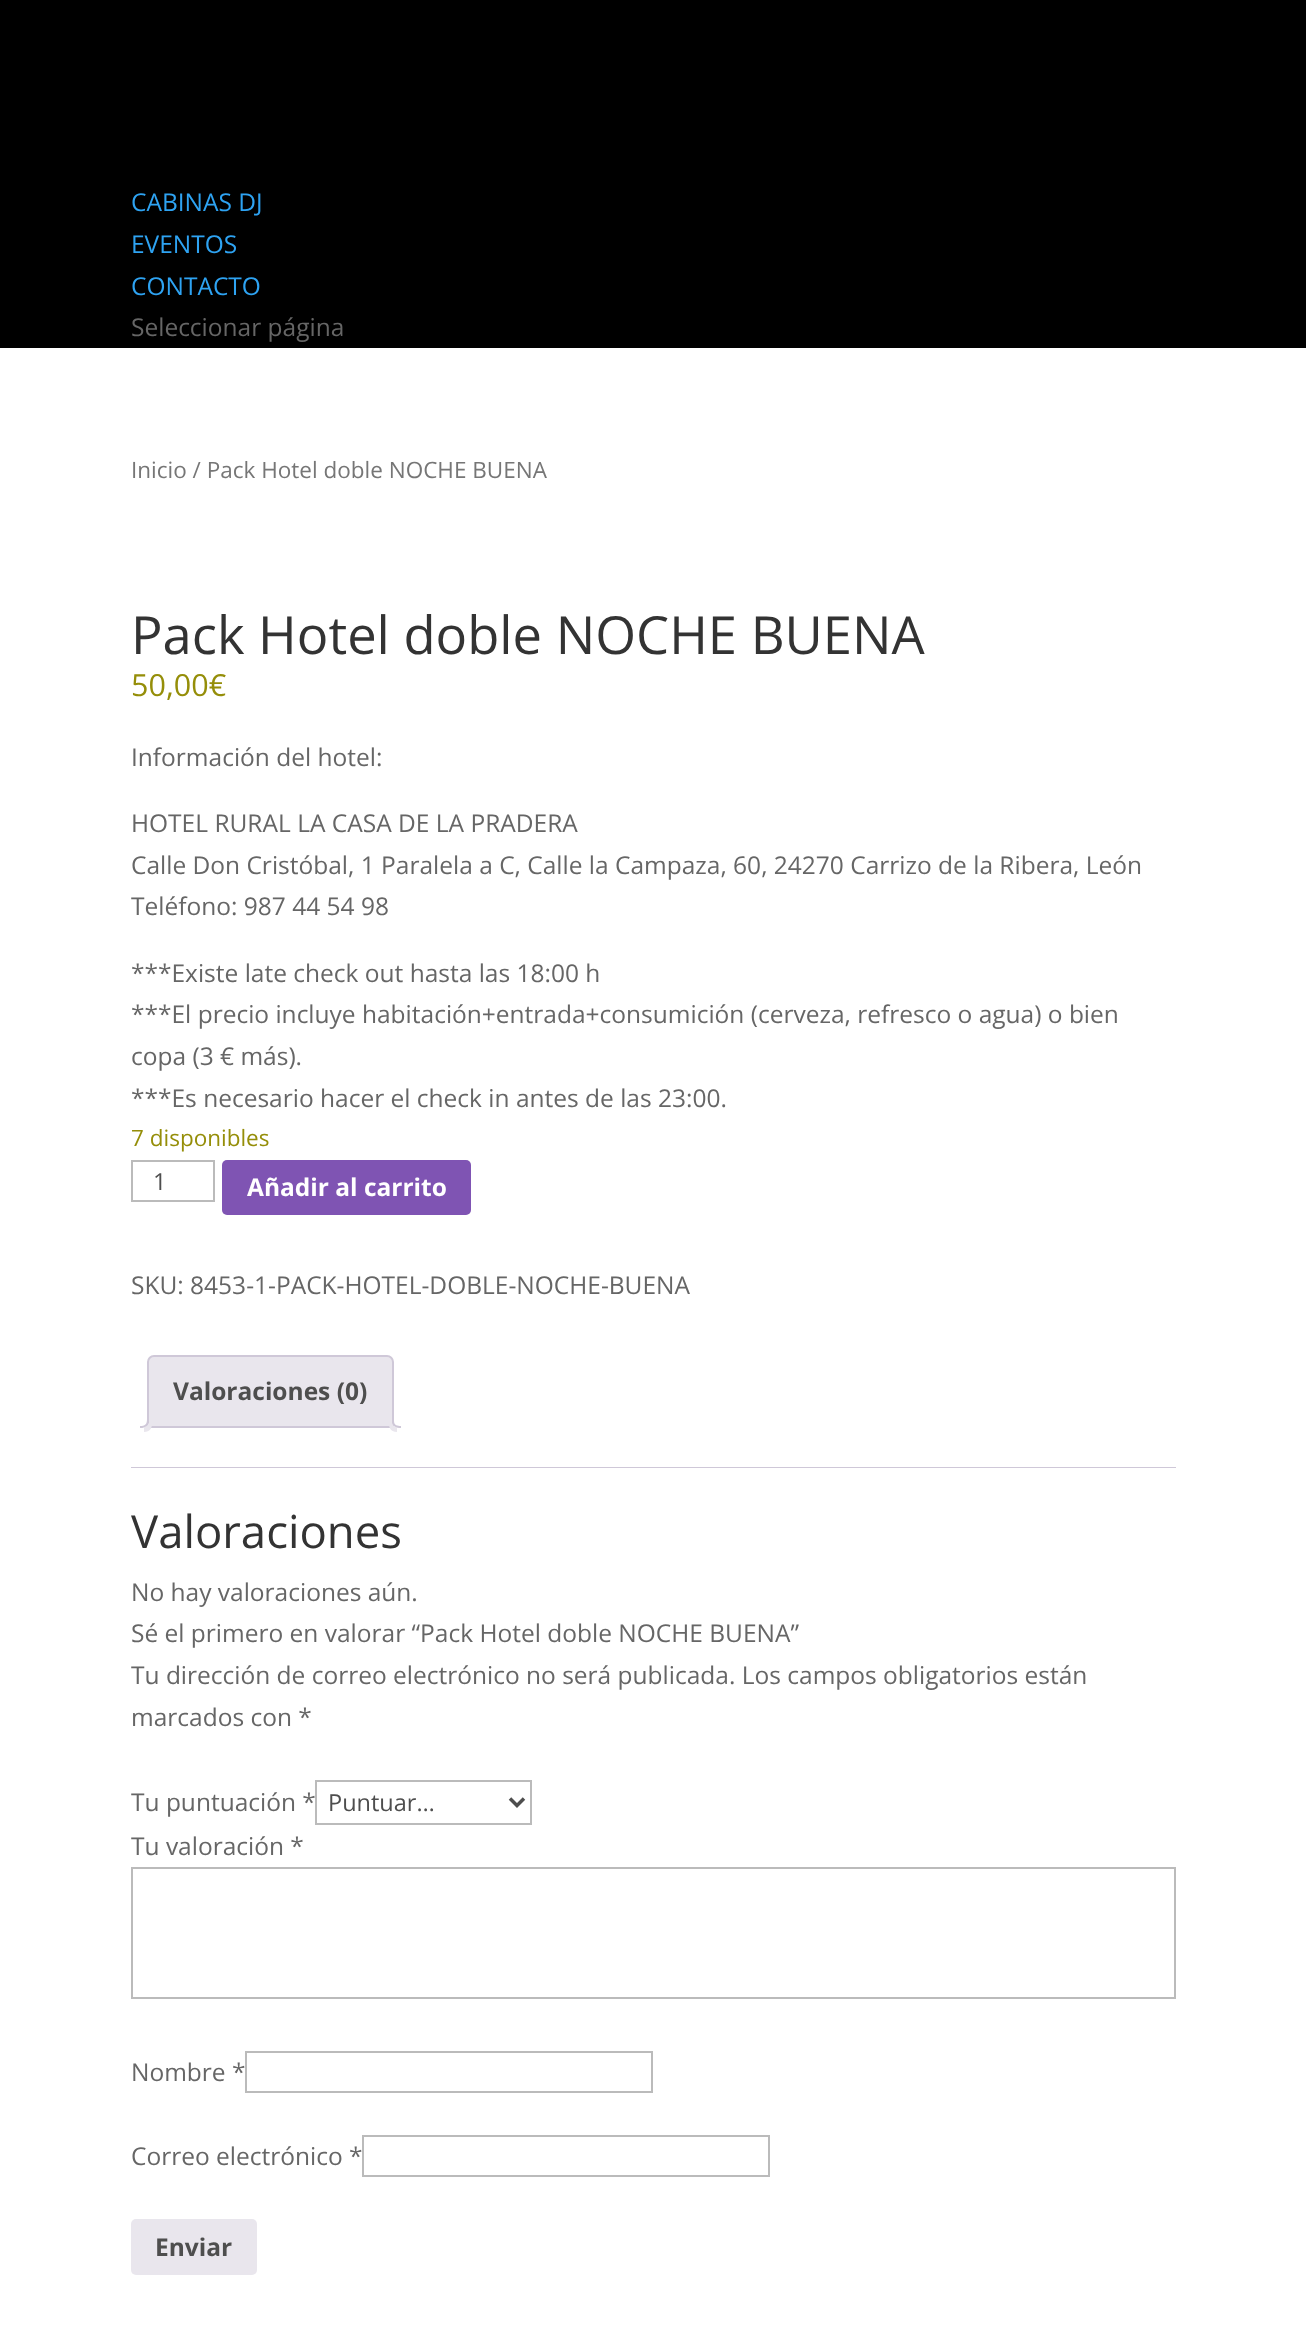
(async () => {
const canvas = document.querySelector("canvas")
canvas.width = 1306
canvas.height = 2337
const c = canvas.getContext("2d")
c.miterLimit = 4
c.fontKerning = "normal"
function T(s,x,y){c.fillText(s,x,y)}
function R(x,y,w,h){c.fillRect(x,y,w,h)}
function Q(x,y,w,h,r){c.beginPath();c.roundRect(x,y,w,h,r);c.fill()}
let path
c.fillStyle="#000"
R(0,0,1306,2337)
c.font="24.5px Open Sans"
c.fillStyle="#2ea3f2"
T("CABINAS DJ",131,211)
T("EVENTOS",131,253)
T("CONTACTO",131,295)
c.fillStyle="#666"
T("Seleccionar página",131,336)
c.fillStyle="#fff"
R(0,348,1306,1989)
c.font="22.5px Open Sans"
c.fillStyle="#767676"
T("Inicio / Pack Hotel doble NOCHE BUENA",131,478)
c.font="52.5px Open Sans"
c.fillStyle="#333"
T("Pack Hotel doble NOCHE BUENA",131,654)
c.font="30.5px Open Sans"
c.fillStyle="#958e09"
T("50,00€",131,696)
c.font="24.5px Open Sans"
c.fillStyle="#666"
T("Información del hotel:",131,766)
T("HOTEL RURAL LA CASA DE LA PRADERA",131,832)
T("Calle Don Cristóbal, 1 Paralela a C, Calle la Campaza, 60, 24270 Carrizo de la Ribera, León",131,874)
T("Teléfono: 987 44 54 98",131,915)
T("***Existe late check out hasta las 18:00 h",131,982)
T("***El precio incluye habitación+entrada+consumición (cerveza, refresco o agua) o bien",131,1023)
T("copa (3 € más).",131,1065)
T("***Es necesario hacer el check in antes de las 23:00.",131,1107)
c.font="22.5px Open Sans"
c.fillStyle="#958e09"
T("7 disponibles",131,1146)
c.strokeStyle="#bbb"
c.lineWidth=2
c.strokeRect(132,1161,82,40)
c.font="23.5px Open Sans"
c.fillStyle="#4e4e4e"
T("1",153,1190)
c.fillStyle="#7f54b3"
Q(222,1160,249,55,5)
c.font="bold 24.5px Open Sans"
c.fillStyle="#fff"
T("Añadir al carrito",247,1196)
c.font="24.5px Open Sans"
c.fillStyle="#666"
T("SKU: 8453-1-PACK-HOTEL-DOBLE-NOCHE-BUENA",131,1294)
c.fillStyle="#e9e6ed"
c.beginPath()
c.roundRect(148,1356,245,71,[6,6,0,0])
c.fill()
c.strokeStyle="#cfc8d8"
c.stroke()
c.font="bold 24.5px Open Sans"
c.fillStyle="#4e4e4e"
T("Valoraciones (0)",173,1400)
c.fillStyle="#e9e6ed"
path = new Path2D("M144 1427.5v4.5c6 0 8-3.5 8-9h-3.5c-.5 2-2.5 4-4.5 4.5z")
c.fill(path)
c.fillStyle="#cfc8d8"
path = new Path2D("M140 1419h9c0 6.5-3 9-9 9zm0 0h7c0 5.5-2 7-7 7z")
c.fill(path,"evenodd")
c.fillStyle="#e9e6ed"
path = new Path2D("M389 1423c0 5.5 2 9 8 9v-4.5c-2.5-.5-4-2-4.5-4.5z")
c.fill(path)
c.fillStyle="#cfc8d8"
path = new Path2D("M392 1419h9v9c-4.5 0-9-1.5-9-7zm2 0h7v7c-3.5 0-7-.5-7-5z")
c.fill(path,"evenodd")
R(131,1467,1045,1)
c.font="45.5px Open Sans"
c.fillStyle="#333"
T("Valoraciones",131,1548)
c.font="24.5px Open Sans"
c.fillStyle="#666"
T("No hay valoraciones aún.",131,1601)
T("Sé el primero en valorar “Pack Hotel doble NOCHE BUENA”",131,1642)
T("Tu dirección de correo electrónico no será publicada. Los campos obligatorios están",131,1684)
T("marcados con *",131,1726)
T("Tu puntuación *",131,1811)
c.strokeStyle="#bbb"
c.strokeRect(316,1781,215,43)
path = new Path2D("M510 1798.5l7 7l7-7")
c.strokeStyle="#4e4e4e"
c.lineWidth=3.5
c.stroke(path)
c.font="23.5px Open Sans"
c.fillStyle="#4e4e4e"
T("Puntuar…",328,1811)
c.font="24.5px Open Sans"
c.fillStyle="#666"
T("Tu valoración *",131,1855)
c.strokeStyle="#bbb"
c.lineWidth=2
c.strokeRect(132,1868,1043,130)
T("Nombre *",131,2081)
c.strokeRect(246,2052,406,40)
T("Correo electrónico *",131,2165)
c.strokeRect(363,2136,406,40)
c.fillStyle="#e9e6ed"
Q(131,2219,126,56,5)
c.font="bold 24.5px Open Sans"
c.fillStyle="#4e4e4e"
T("Enviar",155,2256)
})()
